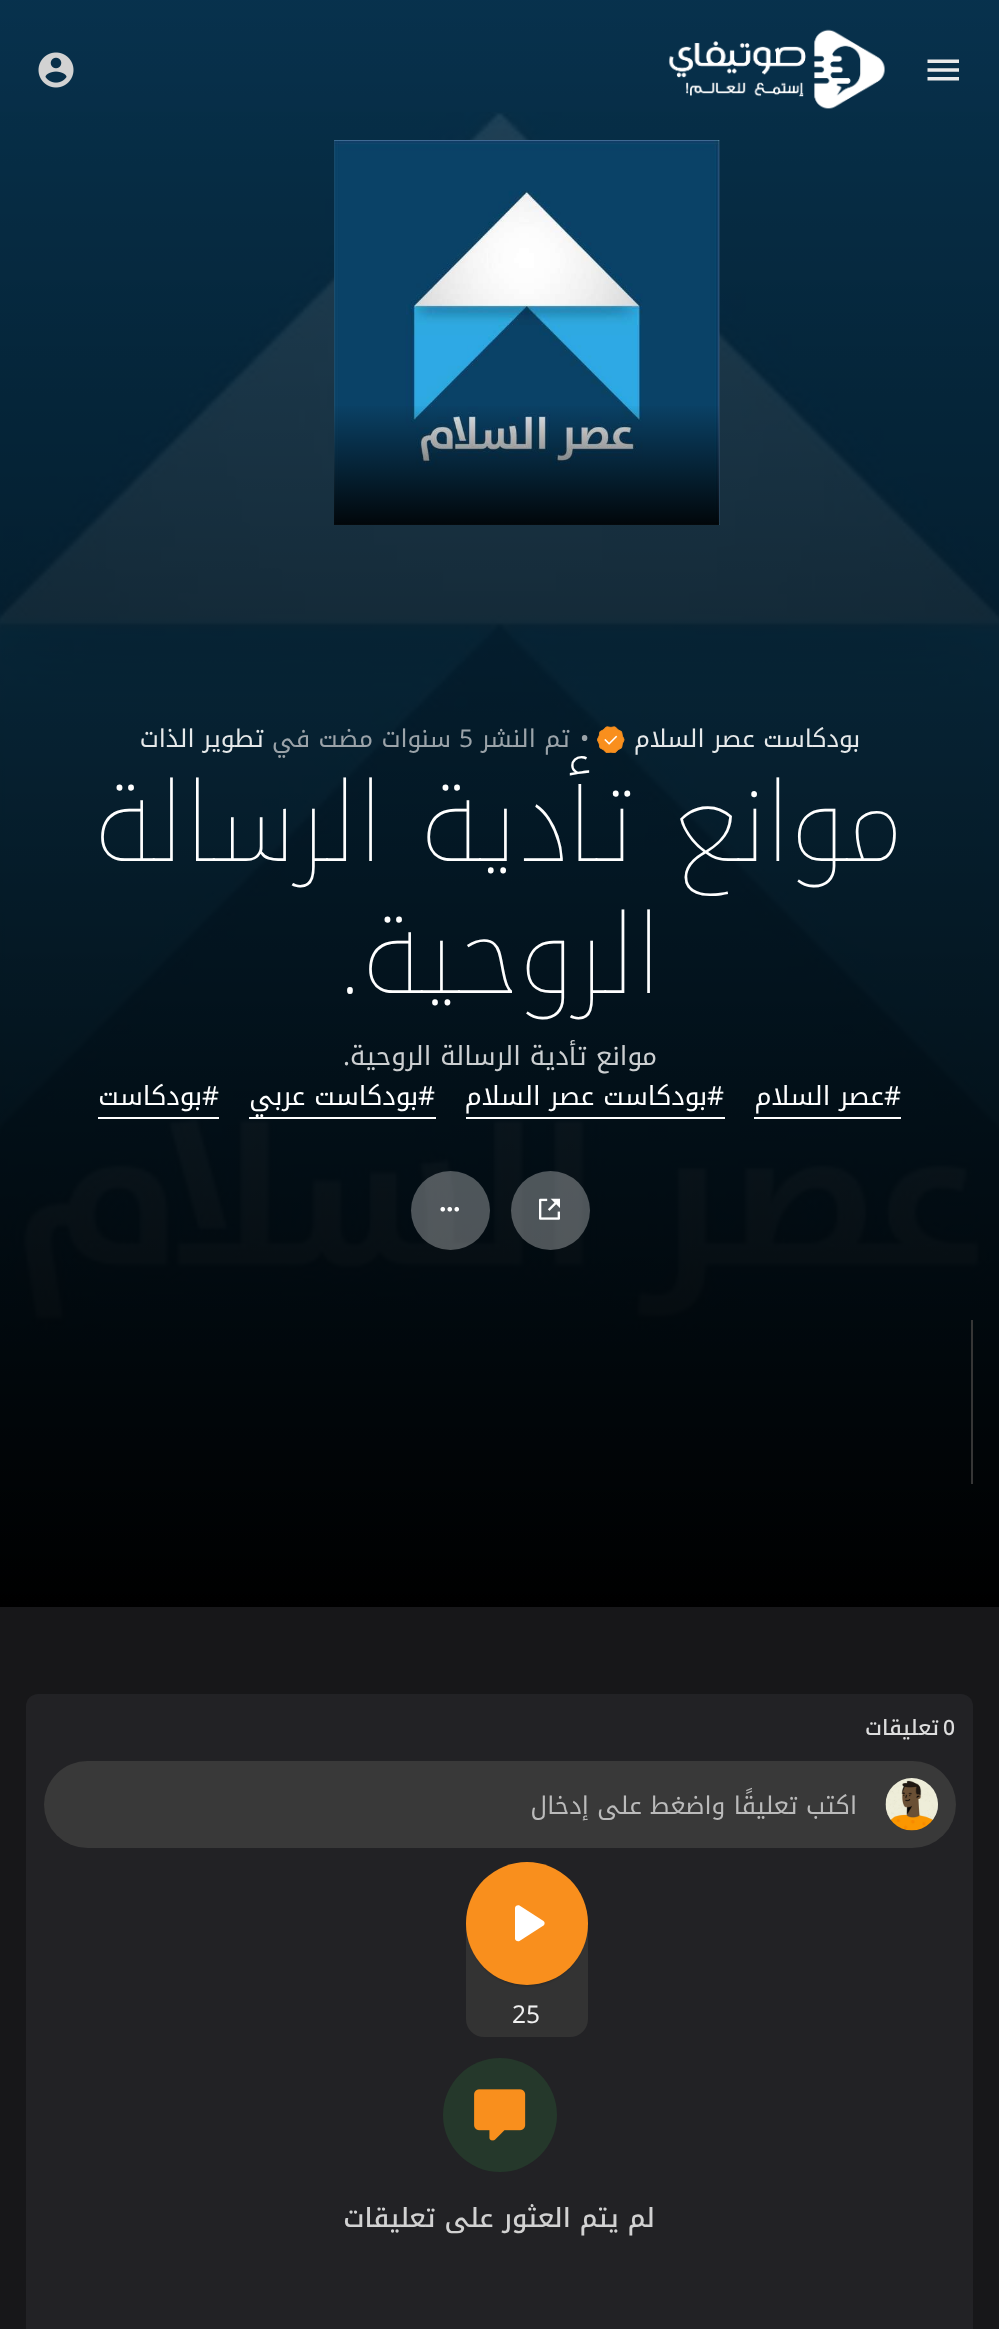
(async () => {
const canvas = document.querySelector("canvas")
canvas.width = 999
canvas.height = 2329
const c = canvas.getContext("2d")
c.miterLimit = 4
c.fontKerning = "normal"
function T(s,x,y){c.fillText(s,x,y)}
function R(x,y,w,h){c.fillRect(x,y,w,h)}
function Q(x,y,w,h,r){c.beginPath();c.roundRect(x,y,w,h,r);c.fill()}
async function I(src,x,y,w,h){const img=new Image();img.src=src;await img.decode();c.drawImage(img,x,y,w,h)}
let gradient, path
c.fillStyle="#171719"
R(0,0,999,2329)
c.fillStyle="#0a4267"
R(0,0,999,1594)
await I("4.png",0,112,999,1482)
gradient = c.createLinearGradient(500,-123,500,1607)
gradient.addColorStop(0,"#00000033")
gradient.addColorStop(1,"#000")
c.fillStyle = gradient
R(0,0,999,1607)
await I("1.png",927,59,32,22)
await I("2.png",668,29,217,80)
await I("3.png",38,52,36,36)
await I("5.png",334,140,386,385)
gradient = c.createLinearGradient(527,403,527,525)
gradient.addColorStop(0,"#00000000")
gradient.addColorStop(1,"#000000e6")
c.fillStyle = gradient
R(334,406,385,119)
c.direction="rtl"
c.font="24.5px Noto Kufi Arabic"
c.fillStyle="#e6e9ea"
T("بودكاست عصر السلام",860,747)
await I("6.png",597,726,28,27)
c.direction="ltr"
c.fillStyle="#9ba3a9"
T("•",580,747)
c.direction="rtl"
T("تم النشر",570,747)
c.direction="ltr"
T("5",459,747)
c.direction="rtl"
T("سنوات مضت",451,747)
T("في",310,747)
c.fillStyle="#e6e9ea"
T("تطوير الذات",264,747)
c.font="100 110px Noto Kufi Arabic"
c.fillStyle="#fff"
T("موانع تأدية الرسالة",904,861)
T("الروحية.",661,993)
c.font="26.25px Noto Kufi Arabic"
c.fillStyle="#cccfd1"
T("موانع تأدية الرسالة الروحية.",657,1065)
c.fillStyle="#fff"
R(754,1117,147,2)
T("#عصر السلام",901,1105)
R(466,1117,259,2)
T("#بودكاست عصر السلام",724,1105)
R(249,1117,187,2)
T("#بودكاست عربي",435,1105)
R(98,1117,121,2)
T("#بودكاست",219,1105)
c.fillStyle="#ffffff4d"
c.beginPath()
c.arc(550.5,1210.5,39.5,0,7)
c.fill()
await I("7.png",539,1198,21,22)
c.beginPath()
c.arc(450.5,1210.5,39.5,0,7)
c.fill()
await I("8.png",440,1206,20,6)
c.fillStyle="#363636"
R(971,1320,2,164)
c.fillStyle="#222225"
Q(26,1694,947,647,12)
c.fillStyle="#333"
c.beginPath()
c.roundRect(466,1927,122,110,[0,0,18,18])
c.fill()
c.fillStyle="#00000033"
c.filter="blur(1px)"
c.beginPath()
c.roundRect(469,1871,116,115,57.5)
c.fill()
c.filter="none"
c.fillStyle="#f98f1d"
Q(466,1862,122,123,61)
c.fillStyle="#fff"
path = new Path2D("M515 1908v30.5c0 2 2.5 3.5 4.5 2.5l24-15.5c1.5-1 1.5-3.5 0-4.5l-24-15.5c-2-1-4.5 .5-4.5 2.5z")
c.fill(path)
c.direction="ltr"
c.font="24.5px Noto Kufi Arabic"
c.fillStyle="#f0f0f0"
T("25",512,2023)
c.letterSpacing="1px"
c.font="500 21px Noto Kufi Arabic"
c.fillStyle="#ddd"
T("0",943,1735)
c.direction="rtl"
T("تعليقات",939,1735)
c.fillStyle="#393939"
Q(44,1761,912,87,43.5)
await I("10.png",934,1800,4,17)
await I("9.png",885,1778,53,53)
c.letterSpacing="0px"
c.font="24.5px Noto Kufi Arabic"
c.fillStyle="#bbb"
T("اكتب تعليقًا واضغط على إدخال",857,1814)
c.fillStyle="#25382b"
c.beginPath()
c.arc(500,2115,57,0,7)
c.fill()
await I("11.png",474,2089,52,52)
c.font="500 26.25px Noto Kufi Arabic"
c.fillStyle="#d2d2d2"
T("لم يتم العثور على تعليقات",655,2227)
})()
